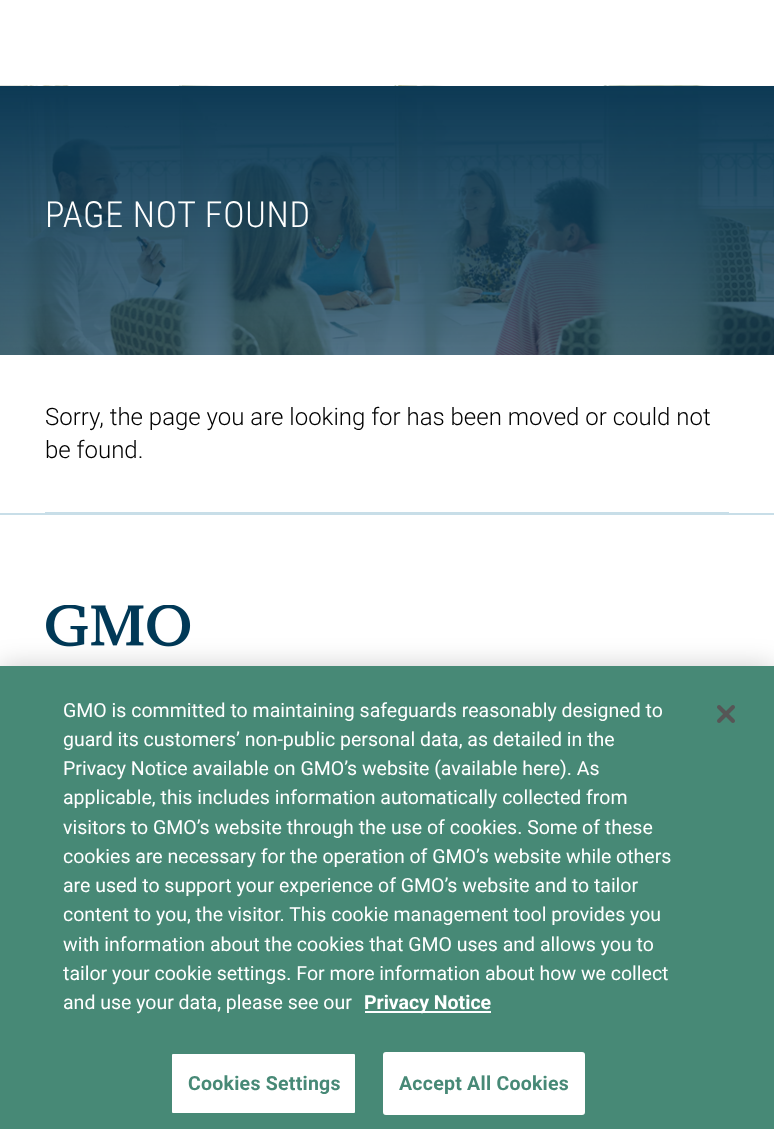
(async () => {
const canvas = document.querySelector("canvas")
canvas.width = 774
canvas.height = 1129
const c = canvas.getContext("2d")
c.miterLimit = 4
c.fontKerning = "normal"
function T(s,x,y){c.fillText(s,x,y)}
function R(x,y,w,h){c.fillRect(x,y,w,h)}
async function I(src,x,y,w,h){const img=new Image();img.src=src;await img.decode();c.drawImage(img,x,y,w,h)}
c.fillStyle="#fff"
R(0,0,774,1129)
await I("1.png",0,85,774,270)
c.letterSpacing="0.75px"
c.font="300 36px Roboto Condensed"
T("PAGE NOT FOUND",45,227)
c.fillStyle="#c8dee8"
R(45,512,684,1)
c.letterSpacing="0px"
c.font="300 24px Roboto"
c.fillStyle="#000"
T("Sorry, the page you are looking for has been moved or could not",45,425)
T("be found.",45,458)
c.fillStyle="#c8dee8"
R(0,513,774,2)
await I("2.png",46,605,145,42)
c.fillStyle="#00000033"
c.filter="blur(13.5px)"
c.beginPath()
c.rect(0,666,774,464)
c.fill()
c.filter="none"
c.fillStyle="#478976"
R(0,666,774,463)
c.font="19.5px Roboto"
c.fillStyle="#fff"
T("GMO is committed to maintaining safeguards reasonably designed to",63,717)
T("guard its customers’ non-public personal data, as detailed in the",63,746)
T("Privacy Notice available on GMO’s website (available here). As",63,775)
T("applicable, this includes information automatically collected from",63,804)
T("visitors to GMO’s website through the use of cookies. Some of these",63,834)
T("cookies are necessary for the operation of GMO’s website while others",63,863)
T("are used to support your experience of GMO’s website and to tailor",63,892)
T("content to you, the visitor. This cookie management tool provides you",63,921)
T("with information about the cookies that GMO uses and allows you to",63,951)
T("tailor your cookie settings. For more information about how we collect",63,980)
T("and use your data, please see our",63,1009)
R(365,1011,126,2)
c.font="bold 19.5px Roboto"
T("Privacy Notice",364,1009)
c.beginPath()
c.roundRect(171,1053,185,61,2)
c.fill()
c.strokeStyle="#478976"
c.lineWidth=2
c.stroke()
c.letterSpacing="0.25px"
c.fillStyle="#478976"
T("Cookies Settings",188,1090)
c.fillStyle="#fff"
c.beginPath()
c.roundRect(384,1053,200,61,2)
c.fill()
c.strokeStyle="#fff"
c.stroke()
c.fillStyle="#478976"
T("Accept All Cookies",399,1090)
await I("3.png",717,705,18,18)
})()
